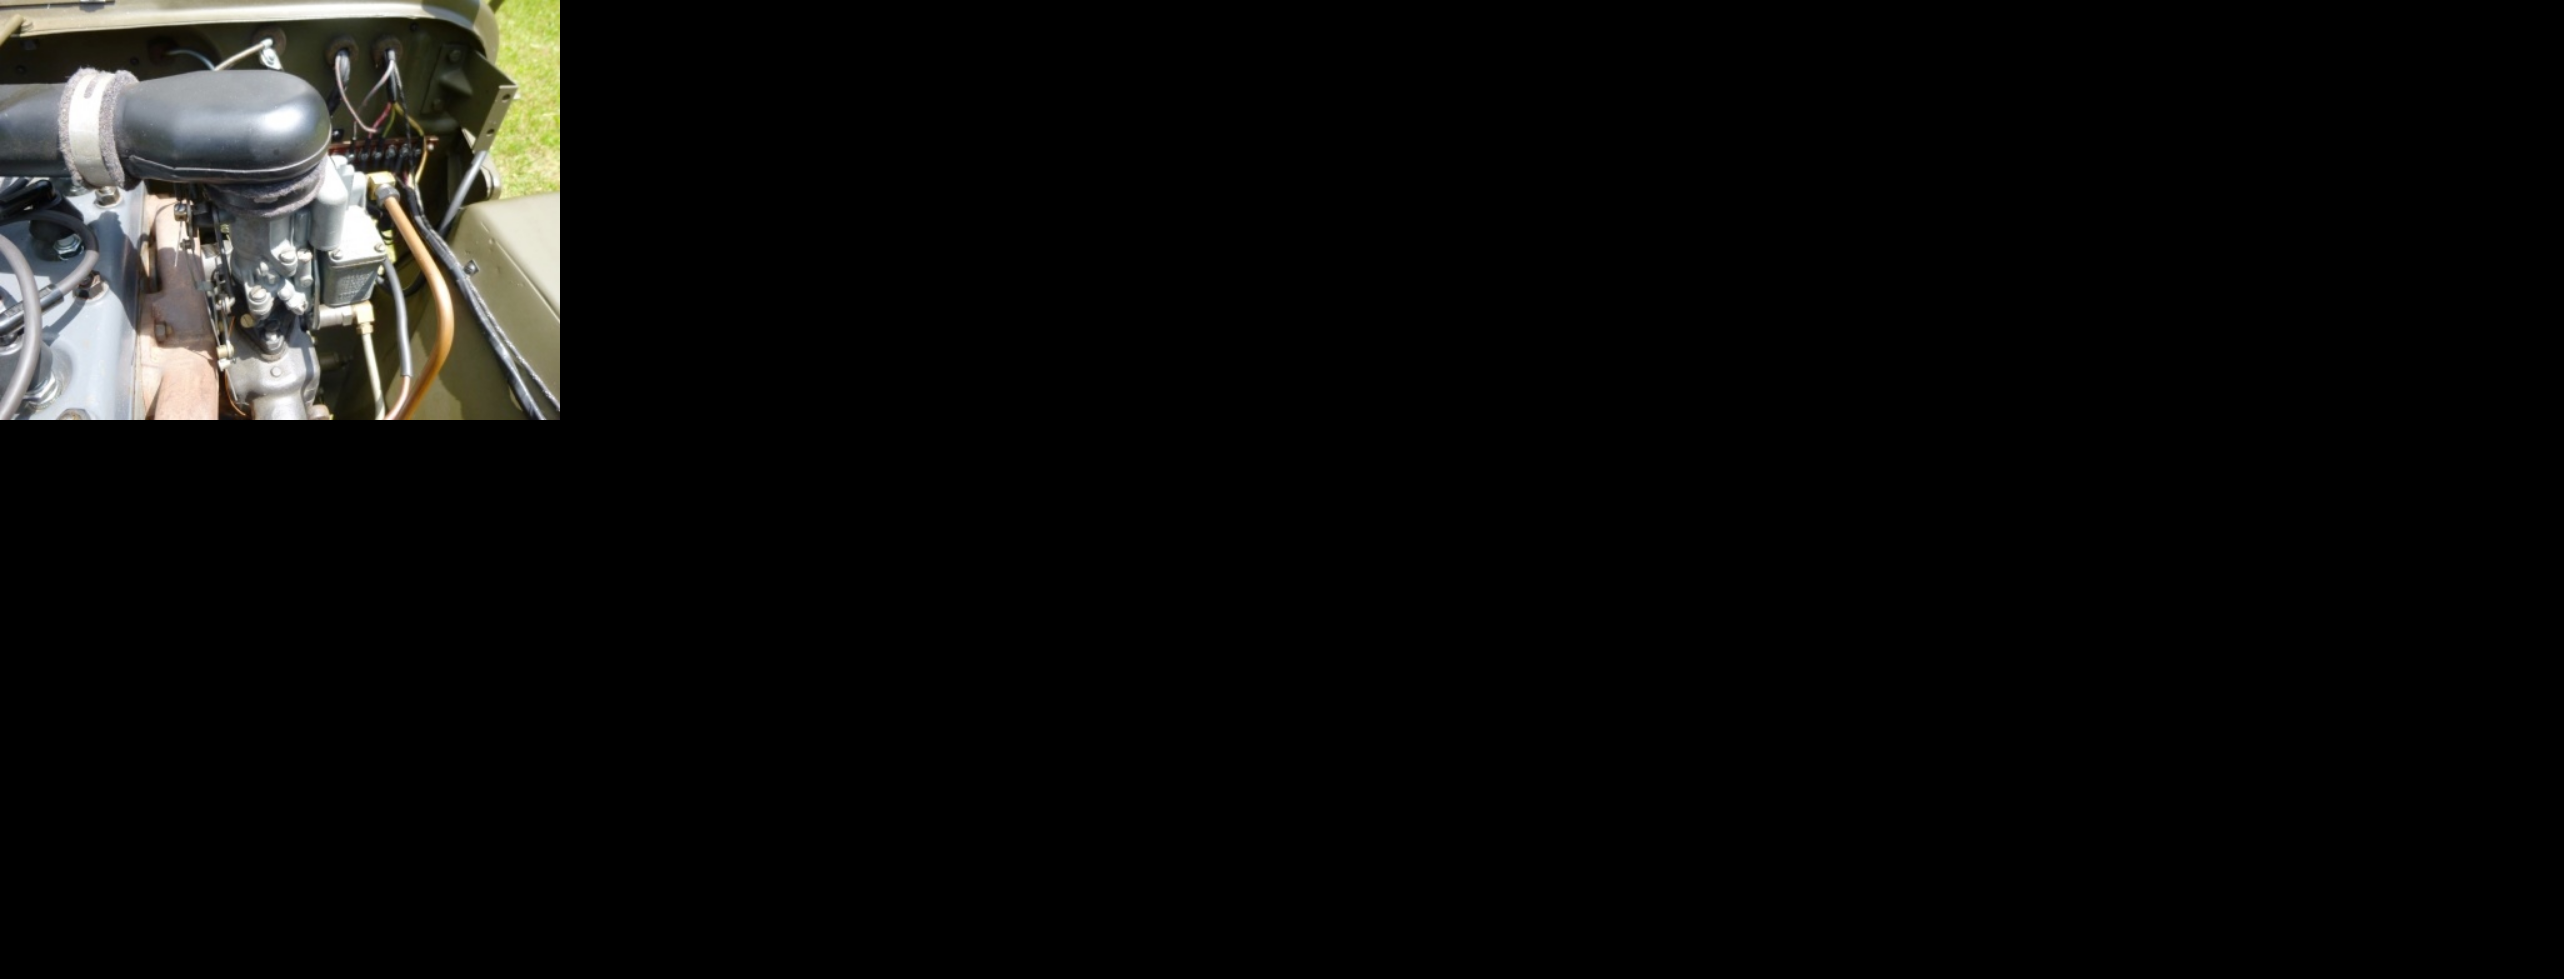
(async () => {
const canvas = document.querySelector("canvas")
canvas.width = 2564
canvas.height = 979
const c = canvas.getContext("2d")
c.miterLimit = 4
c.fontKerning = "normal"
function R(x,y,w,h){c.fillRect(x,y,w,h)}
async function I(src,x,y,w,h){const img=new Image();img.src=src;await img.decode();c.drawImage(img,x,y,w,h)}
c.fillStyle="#000"
R(0,0,2564,979)
await I("1.png",0,0,560,420)
})()
